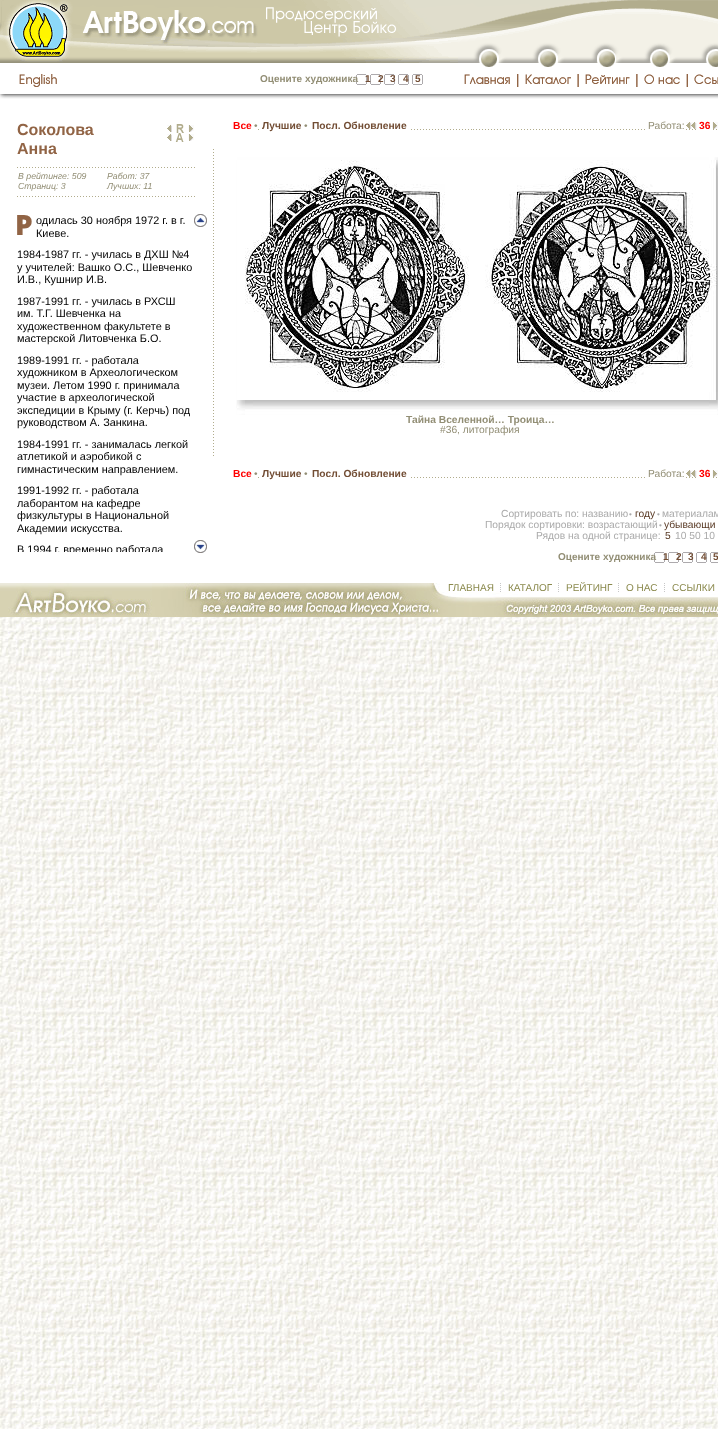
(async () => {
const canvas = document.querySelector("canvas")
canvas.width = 718
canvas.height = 1429
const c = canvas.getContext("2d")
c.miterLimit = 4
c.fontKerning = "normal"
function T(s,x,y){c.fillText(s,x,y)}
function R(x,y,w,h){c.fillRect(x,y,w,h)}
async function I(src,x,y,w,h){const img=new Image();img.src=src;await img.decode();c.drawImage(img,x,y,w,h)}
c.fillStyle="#fff"
R(0,0,718,1429)
await I("1.png",0,617,718,812)
await I("2.png",0,0,718,38)
await I("3.png",0,38,458,25)
await I("4.png",458,38,260,12)
await I("5.png",458,50,22,13)
await I("6.png",480,50,18,17)
await I("7.png",498,50,40,13)
await I("8.png",538,50,19,17)
await I("9.png",557,50,41,13)
await I("10.png",598,50,18,17)
await I("11.png",616,50,35,13)
await I("12.png",651,50,18,17)
await I("13.png",669,50,38,13)
await I("14.png",707,50,11,17)
await I("15.png",19,74,38,13)
await I("16.png",464,74,46,10)
await I("17.png",517,74,2,13)
await I("18.png",525,74,46,10)
await I("19.png",577,74,2,13)
await I("20.png",585,74,45,10)
await I("21.png",636,74,2,13)
await I("22.png",644,74,36,10)
await I("23.png",686,74,2,13)
await I("24.png",694,74,24,10)
await I("25.png",356,74,67,11)
c.font="bold 10px Liberation Sans"
c.fillStyle="#928e75"
T("Оцените художника",260,82)
c.fillStyle="#724d34"
T("1",365,82)
T("2",378,82)
T("3",390,82)
T("4",403,82)
T("5",415,82)
await I("26.png",0,94,718,5)
c.font="bold 16px Liberation Sans"
c.fillStyle="#916445"
T("Соколова",17,135)
T("Анна",17,154)
await I("27.png",167,125,5,7)
await I("28.png",176,124,8,9)
await I("29.png",188,125,6,7)
await I("27.png",167,134,5,7)
await I("30.png",175,133,9,9)
await I("29.png",188,134,6,7)
await I("31.png",17,167,178,1)
c.font="italic 8.75px Liberation Sans"
c.fillStyle="#928e75"
T("В рейтинге: 509",18,179)
T("Страниц: 3",18,189)
T("Работ: 37",107,179)
T("Лучших: 11",107,189)
await I("31.png",17,196,178,1)
c.font="900 28px Noto Sans"
c.fillStyle="#916445"
T("Р",15,235)
c.font="10.9px Liberation Sans"
c.fillStyle="#000"
T("одилась 30 ноября 1972 г. в г.",36,224)
T("Киеве.",36,237)
T("1984-1987 гг. - училась в ДХШ №4",17,258)
T("у учителей: Вашко О.С., Шевченко",17,271)
T("И.В., Кушнир И.В.",17,283)
T("1987-1991 гг. - училась в РХСШ",17,305)
T("им. Т.Г. Шевченка на",17,317)
T("художественном факультете в",17,330)
T("мастерской Литовченка Б.О.",17,342)
T("1989-1991 гг. - работала",17,364)
T("художником в Археологическом",17,376)
T("музеи. Летом 1990 г. принимала",17,389)
T("участие в археологической",17,401)
T("экспедиции в Крыму (г. Керчь) под",17,414)
T("руководством А. Занкина.",17,426)
T("1984-1991 гг. - занималась легкой",17,448)
T("атлетикой и аэробикой с",17,460)
T("гимнастическим направлением.",17,473)
T("1991-1992 гг. - работала",17,494)
T("лаборантом на кафедре",17,507)
T("физкультуры в Национальной",17,519)
T("Академии искусства.",17,532)
c.save()
c.beginPath()
c.rect(17,212,178,340)
c.clip()
T("В 1994 г. временно работала",17,553)
c.restore()
await I("32.png",194,214,13,13)
await I("33.png",194,540,13,13)
await I("34.png",258,129,214,1)
c.font="bold 10.25px Liberation Sans"
c.fillStyle="#f00"
T("Все",233,129)
c.font="10.25px Liberation Sans"
c.fillStyle="#928e75"
T("•",254,129)
c.fillStyle="#fff"
R(261,129,1,2)
R(264,129,37,1)
c.font="bold 10.25px Liberation Sans"
c.fillStyle="#724d34"
T("Лучшие",262,129)
c.fillStyle="#fff"
R(303,129,1,2)
c.font="10.25px Liberation Sans"
c.fillStyle="#928e75"
T("•",304,129)
c.fillStyle="#fff"
R(306,129,1,2)
R(309,129,1,2)
R(312,129,94,1)
c.font="bold 10.25px Liberation Sans"
c.fillStyle="#724d34"
T("Посл. Обновление",312,129)
c.fillStyle="#fff"
R(408,129,1,2)
await I("35.png",473,129,244,1)
R(647,129,37,1)
c.font="10.25px Liberation Sans"
c.fillStyle="#928e75"
T("Работа:",648,129)
await I("36.png",686,122,11,7)
c.fillStyle="#fff"
R(701,129,7,1)
c.font="bold 10.25px Liberation Sans"
c.fillStyle="#f00"
T("36",699,129)
c.fillStyle="#fff"
R(698,123,1,7)
R(710,123,1,7)
await I("29.png",712,122,6,7)
await I("37.png",213,149,1,307)
await I("38.png",236,157,482,258)
c.fillStyle="#928e75"
T("Тайна Вселенной… Троица…",406,423)
c.font="10.25px Liberation Sans"
T("#36, литография",440,433)
await I("34.png",258,477,214,1)
c.font="bold 10.25px Liberation Sans"
c.fillStyle="#f00"
T("Все",233,477)
c.font="10.25px Liberation Sans"
c.fillStyle="#928e75"
T("•",254,477)
c.fillStyle="#fff"
R(261,477,1,2)
R(264,477,37,1)
c.font="bold 10.25px Liberation Sans"
c.fillStyle="#724d34"
T("Лучшие",262,477)
c.fillStyle="#fff"
R(303,477,1,2)
c.font="10.25px Liberation Sans"
c.fillStyle="#928e75"
T("•",304,477)
c.fillStyle="#fff"
R(306,477,1,2)
R(309,477,1,2)
R(312,477,94,1)
c.font="bold 10.25px Liberation Sans"
c.fillStyle="#724d34"
T("Посл. Обновление",312,477)
c.fillStyle="#fff"
R(408,477,1,2)
await I("35.png",473,477,244,1)
R(647,477,37,1)
c.font="10.25px Liberation Sans"
c.fillStyle="#928e75"
T("Работа:",648,477)
await I("36.png",686,470,11,7)
c.fillStyle="#fff"
R(701,477,7,1)
c.font="bold 10.25px Liberation Sans"
c.fillStyle="#f00"
T("36",699,477)
c.fillStyle="#fff"
R(698,471,1,7)
R(710,471,1,7)
await I("29.png",712,470,6,7)
c.font="10.25px Liberation Sans"
c.fillStyle="#aaa"
T("Сортировать по: названию",501,517)
c.font="8px Liberation Sans"
T("•",629,517)
c.font="10.25px Liberation Sans"
c.fillStyle="#593a25"
T("году",635,517)
c.font="8px Liberation Sans"
c.fillStyle="#aaa"
T("•",657,517)
c.font="10.25px Liberation Sans"
T("материалам",662,517)
T("Порядок сортировки: возрастающий",485,528)
c.font="8px Liberation Sans"
T("•",659,528)
c.font="10.25px Liberation Sans"
c.fillStyle="#593a25"
T("убывающи",664,528)
c.fillStyle="#aaa"
T("Рядов на одной странице:",536,539)
c.fillStyle="#593a25"
T("5",665,539)
c.fillStyle="#aaa"
T("10 50 10",675,539)
await I("39.png",654,552,64,11)
c.font="bold 10px Liberation Sans"
c.fillStyle="#928e75"
T("Оцените художника",558,560)
c.fillStyle="#724d34"
T("1",663,560)
T("2",676,560)
T("3",688,560)
T("4",701,560)
T("5",713,560)
await I("40.png",0,583,718,34)
await I("41.png",500,583,1,9)
c.font="10px Liberation Sans"
c.fillStyle="#8a894c"
T("ГЛАВНАЯ",448,591)
await I("41.png",558,583,1,9)
T("КАТАЛОГ",508,591)
await I("41.png",618,583,1,9)
T("РЕЙТИНГ",566,591)
await I("41.png",664,583,1,9)
T("О НАС",626,591)
T("ССЫЛКИ",672,591)
})()
